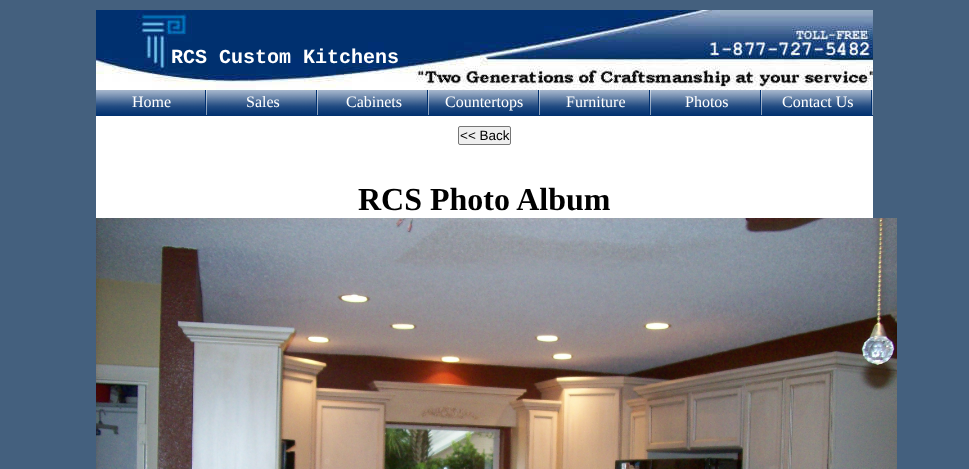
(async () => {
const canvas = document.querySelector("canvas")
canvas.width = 969
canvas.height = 469
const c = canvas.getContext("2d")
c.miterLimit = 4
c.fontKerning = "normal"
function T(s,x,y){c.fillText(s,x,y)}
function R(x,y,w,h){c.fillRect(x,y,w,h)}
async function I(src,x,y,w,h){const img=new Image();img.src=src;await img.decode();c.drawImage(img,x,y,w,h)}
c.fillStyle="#44607e"
R(0,0,969,469)
c.fillStyle="#fff"
R(96,116,777,102)
await I("1.png",96,10,777,80)
c.font="bold 20px Liberation Mono"
T("RCS Custom Kitchens",171,63)
await I("2.png",96,90,111,26)
c.font="16px Liberation Serif"
T("Home",132,107)
await I("2.png",207,90,111,26)
T("Sales",246,107)
await I("2.png",318,90,111,26)
T("Cabinets",346,107)
await I("2.png",429,90,111,26)
T("Countertops",445,107)
await I("2.png",540,90,111,26)
T("Furniture",566,107)
await I("2.png",651,90,111,26)
T("Photos",685,107)
await I("2.png",762,90,111,26)
T("Contact Us",782,107)
c.fillStyle="#efefef"
c.beginPath()
c.roundRect(458.5,126.5,52,18,1.5)
c.fill()
c.strokeStyle="#767676"
c.stroke()
c.font="13.5px Liberation Sans"
c.fillStyle="#000"
T("<< Back",460,140)
c.font="bold 32px Liberation Serif"
T("RCS Photo Album",358,210)
await I("3.png",96,218,801,251)
})()
